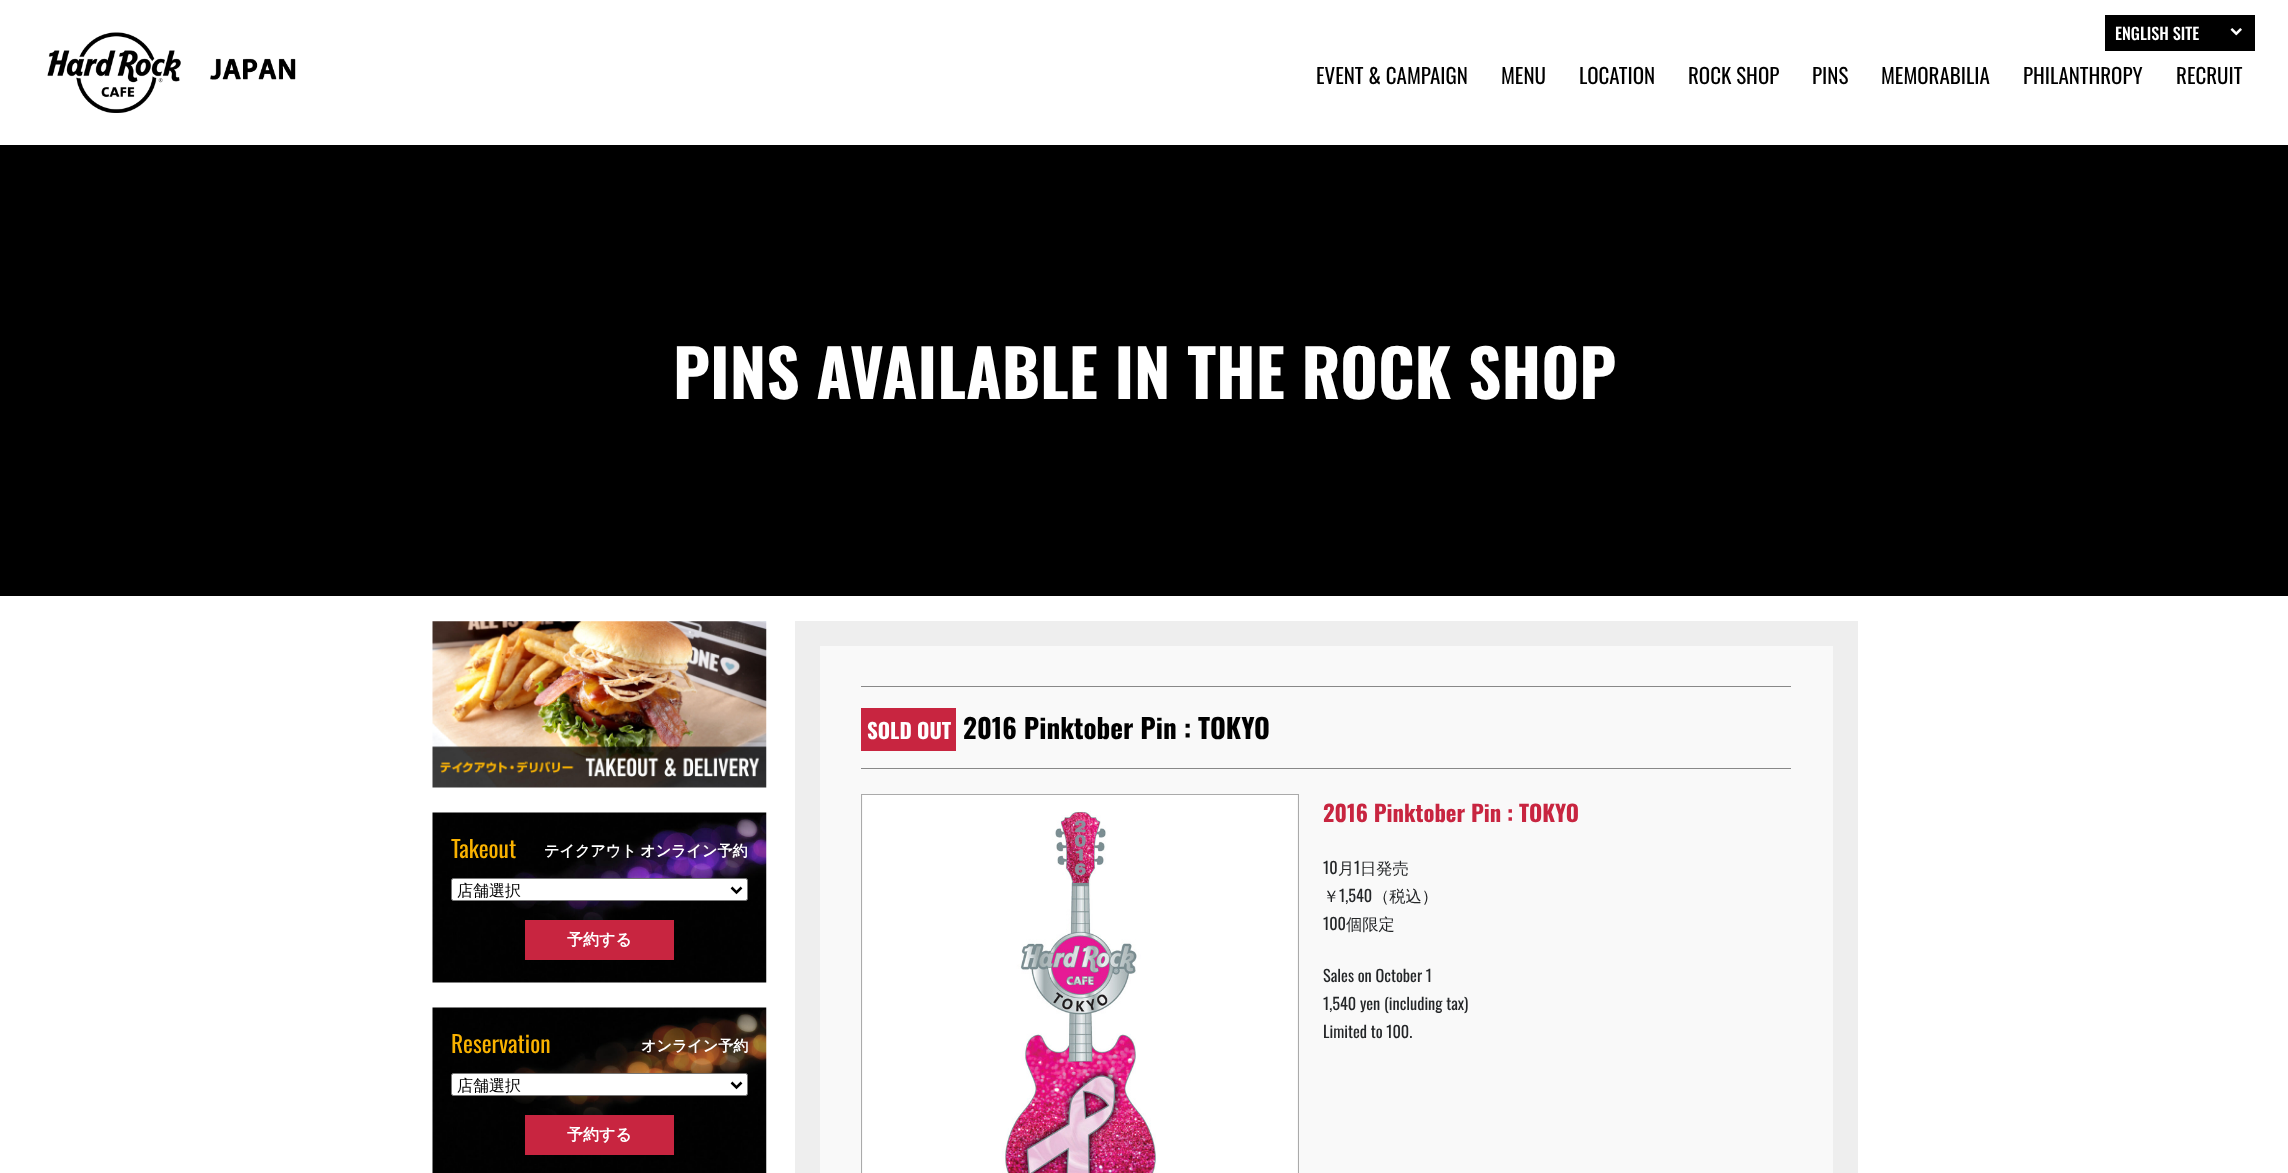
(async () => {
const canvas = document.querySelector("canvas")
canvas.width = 2288
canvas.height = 1173
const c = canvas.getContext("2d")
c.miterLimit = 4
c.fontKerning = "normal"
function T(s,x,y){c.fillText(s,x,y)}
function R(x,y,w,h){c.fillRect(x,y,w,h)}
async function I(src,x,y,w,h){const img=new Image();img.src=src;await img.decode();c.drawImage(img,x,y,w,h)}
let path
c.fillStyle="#fff"
R(0,0,2288,1173)
await I("1.png",47,32,249,81)
c.fillStyle="#000"
R(2105,15,150,36)
c.font="500 16.25px Oswald"
c.fillStyle="#fff"
T("ENGLISH SITE",2115,40)
await I("2.png",2230,28,12,8)
c.font="21px Oswald"
c.fillStyle="#000"
T("EVENT & CAMPAIGN",1316,84)
T("MENU",1501,84)
T("LOCATION",1579,84)
T("ROCK SHOP",1688,84)
T("PINS",1812,84)
T("MEMORABILIA",1881,84)
T("PHILANTHROPY",2023,84)
T("RECRUIT",2176,84)
R(0,145,2288,451)
c.font="bold 65px Oswald"
c.fillStyle="#fff"
T("PINS AVAILABLE IN THE ROCK SHOP",673,399)
await I("3.png",432,621,335,167)
await I("4.png",432,812,335,171)
c.font="23.5px Oswald"
c.fillStyle="#f9b200"
T("Takeout",451,858)
c.wordSpacing="-1px"
c.font="bold 15.1px WenQuanYi Zen Hei"
c.fillStyle="#fff"
T("テイクアウト オンライン予約",544,856)
c.beginPath()
c.roundRect(451.5,878.5,296,22,2)
c.fill()
c.strokeStyle="#767676"
c.stroke()
path = new Path2D("M731.5 887.5l5 5l5-5")
c.strokeStyle="#000"
c.lineWidth=2.5
c.stroke(path)
c.wordSpacing="0px"
c.font="500 16px WenQuanYi Zen Hei"
c.fillStyle="#000"
T("店舗選択",457,896)
c.fillStyle="#c82540"
R(525,920,149,40)
c.font="bold 16px WenQuanYi Zen Hei"
c.fillStyle="#fff"
T("予約する",567,945)
await I("5.png",432,1007,335,166)
c.font="23.5px Oswald"
c.fillStyle="#f9b200"
T("Reservation",451,1053)
c.font="bold 15.1px WenQuanYi Zen Hei"
c.fillStyle="#fff"
T("オンライン予約",641,1051)
c.beginPath()
c.roundRect(451.5,1073.5,296,22,2)
c.fill()
c.strokeStyle="#767676"
c.lineWidth=1
c.stroke()
path = new Path2D("M731.5 1082.5l5 5l5-5")
c.strokeStyle="#000"
c.lineWidth=2.5
c.stroke(path)
c.font="500 16px WenQuanYi Zen Hei"
c.fillStyle="#000"
T("店舗選択",457,1091)
c.fillStyle="#c82540"
R(525,1115,149,40)
c.font="bold 16px WenQuanYi Zen Hei"
c.fillStyle="#fff"
T("予約する",567,1140)
c.fillStyle="#eee"
R(795,621,1063,552)
c.fillStyle="#f9f9f9"
R(820,646,1013,527)
c.fillStyle="#888"
R(861,686,930,1)
R(861,768,930,1)
c.fillStyle="#c82540"
R(861,708,95,43)
c.font="bold 21px Oswald"
c.fillStyle="#fff"
T("SOLD OUT",867,739)
c.font="bold 27.1px Oswald"
c.fillStyle="#000"
T("2016 Pinktober Pin : TOKYO",963,739)
c.strokeStyle="#aaa"
c.lineWidth=1
c.strokeRect(861.5,794.5,437,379)
await I("6.png",863,795,434,378)
c.font="bold 22.6px Oswald"
c.fillStyle="#c82540"
T("2016 Pinktober Pin : TOKYO",1323,822)
c.font="16.25px Oswald"
c.fillStyle="#242628"
T("10",1323,874)
c.font="500 16.25px WenQuanYi Zen Hei"
T("月",1338,874)
c.font="16.25px Oswald"
T("1",1354,874)
c.font="500 16.25px WenQuanYi Zen Hei"
T("日発売",1360,874)
T("￥",1323,902)
c.font="16.25px Oswald"
T("1,540",1339,902)
c.font="500 16.25px WenQuanYi Zen Hei"
T("（税込）",1373,902)
c.font="16.25px Oswald"
T("100",1323,930)
c.font="500 16.25px WenQuanYi Zen Hei"
T("個限定",1346,930)
c.font="16.25px Oswald"
T("Sales on October 1",1323,982)
T("1,540 yen (including tax)",1323,1010)
T("Limited to 100.",1323,1038)
})()
